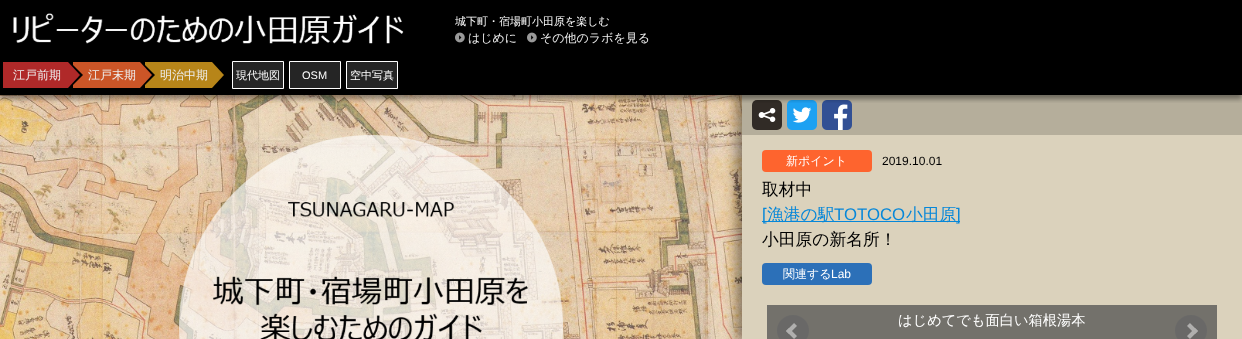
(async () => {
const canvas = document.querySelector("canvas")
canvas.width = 1242
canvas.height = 339
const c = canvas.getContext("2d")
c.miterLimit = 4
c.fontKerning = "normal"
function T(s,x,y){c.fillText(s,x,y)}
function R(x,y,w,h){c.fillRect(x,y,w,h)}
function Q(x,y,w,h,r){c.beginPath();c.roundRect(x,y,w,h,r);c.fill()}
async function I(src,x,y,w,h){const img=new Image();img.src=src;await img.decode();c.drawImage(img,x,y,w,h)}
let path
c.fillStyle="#000"
R(0,0,1242,339)
await I("3.png",0,95,742,244)
c.fillStyle="#00000066"
c.filter="blur(6px)"
c.beginPath()
c.rect(736,93,504,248)
c.fill()
c.filter="none"
c.fillStyle="#b5ae9b"
R(742,95,500,40)
c.fillStyle="#312b26"
Q(752,100,30,30,5)
await I("6.png",787,100,30,30)
await I("7.png",822,100,30,30)
c.save()
c.beginPath()
c.rect(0,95,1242,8)
c.clip()
c.fillStyle="#00000066"
c.filter="blur(2.5px)"
c.beginPath()
c.rect(0,4,1242,95)
c.fill()
c.filter="none"
c.restore()
await I("1.png",13,13,391,31)
c.font="500 11px WenQuanYi Zen Hei"
c.fillStyle="#fff"
T("城下町・宿場町小田原を楽しむ",455,25)
await I("2.png",455,32,10,11)
c.font="500 12px WenQuanYi Zen Hei"
c.fillStyle="#eee"
T("はじめに",468,42)
await I("2.png",527,32,10,11)
T("その他のラボを見る",540,42)
c.fillStyle="#b02929"
R(3,62,65,26)
c.fillStyle="#cb5527"
R(73,62,67,26)
c.fillStyle="#000"
path = new Path2D("M68 90v-30l15 15z")
c.fill(path)
c.fillStyle="#eee"
T("江戸前期",13,79)
c.fillStyle="#b02929"
path = new Path2D("M68 88v-26l12 13z")
c.fill(path)
c.fillStyle="#b78519"
R(145,62,67,26)
c.fillStyle="#000"
path = new Path2D("M140 90v-30l15 15z")
c.fill(path)
c.fillStyle="#eee"
T("江戸末期",88,79)
c.fillStyle="#cb5527"
path = new Path2D("M140 88v-26l12 13z")
c.fill(path)
c.fillStyle="#eee"
T("明治中期",160,79)
c.fillStyle="#b78519"
path = new Path2D("M212 88v-26l12 13z")
c.fill(path)
c.fillStyle="#252525"
c.beginPath()
c.rect(232.5,61.5,51,27)
c.fill()
c.strokeStyle="#fff"
c.stroke()
c.font="500 11px WenQuanYi Zen Hei"
c.fillStyle="#fff"
T("現代地図",236,79)
c.fillStyle="#252525"
c.beginPath()
c.rect(289.5,61.5,51,27)
c.fill()
c.stroke()
c.font="11px Liberation Sans"
c.fillStyle="#fff"
T("OSM",302,79)
c.fillStyle="#252525"
c.beginPath()
c.rect(346.5,61.5,51,27)
c.fill()
c.stroke()
c.font="500 11px WenQuanYi Zen Hei"
c.fillStyle="#fff"
T("空中写真",350,79)
await I("4.png",179,135,384,204)
c.fillStyle="#dbd2bc"
R(742,135,500,204)
await I("5.png",758,108,18,14)
c.fillStyle="#fe642e"
Q(762,150,110,22,4)
c.font="500 12px WenQuanYi Zen Hei"
c.fillStyle="#fff"
T("新ポイント",786,165)
c.font="12px Liberation Sans"
c.fillStyle="#000"
T("2019.10.01",882,165)
c.font="500 16.75px WenQuanYi Zen Hei"
T("取材中",762,195)
c.fillStyle="#0687d9"
R(762,221,198,1)
c.font="16.75px Liberation Sans"
T("[",762,220)
c.font="500 16.75px WenQuanYi Zen Hei"
T("漁港の駅",767,220)
c.font="16.75px Liberation Sans"
T("TOTOCO",834,220)
c.font="500 16.75px WenQuanYi Zen Hei"
T("小田原",906,220)
c.font="16.75px Liberation Sans"
T("]",956,220)
c.font="500 16.75px WenQuanYi Zen Hei"
c.fillStyle="#000"
T("小田原の新名所！",762,245)
c.fillStyle="#2c70b8"
Q(762,263,110,22,4)
c.font="500 12px WenQuanYi Zen Hei"
c.fillStyle="#fff"
T("関連する",783,278)
c.font="12px Liberation Sans"
T("Lab",831,278)
c.fillStyle="#73716b"
R(767,305,450,34)
c.font="500 14.25px WenQuanYi Zen Hei"
c.fillStyle="#fff"
T("はじめてでも面白い箱根湯本",898,325)
await I("8.png",777,315,32,24)
await I("9.png",1175,315,32,24)
})()
